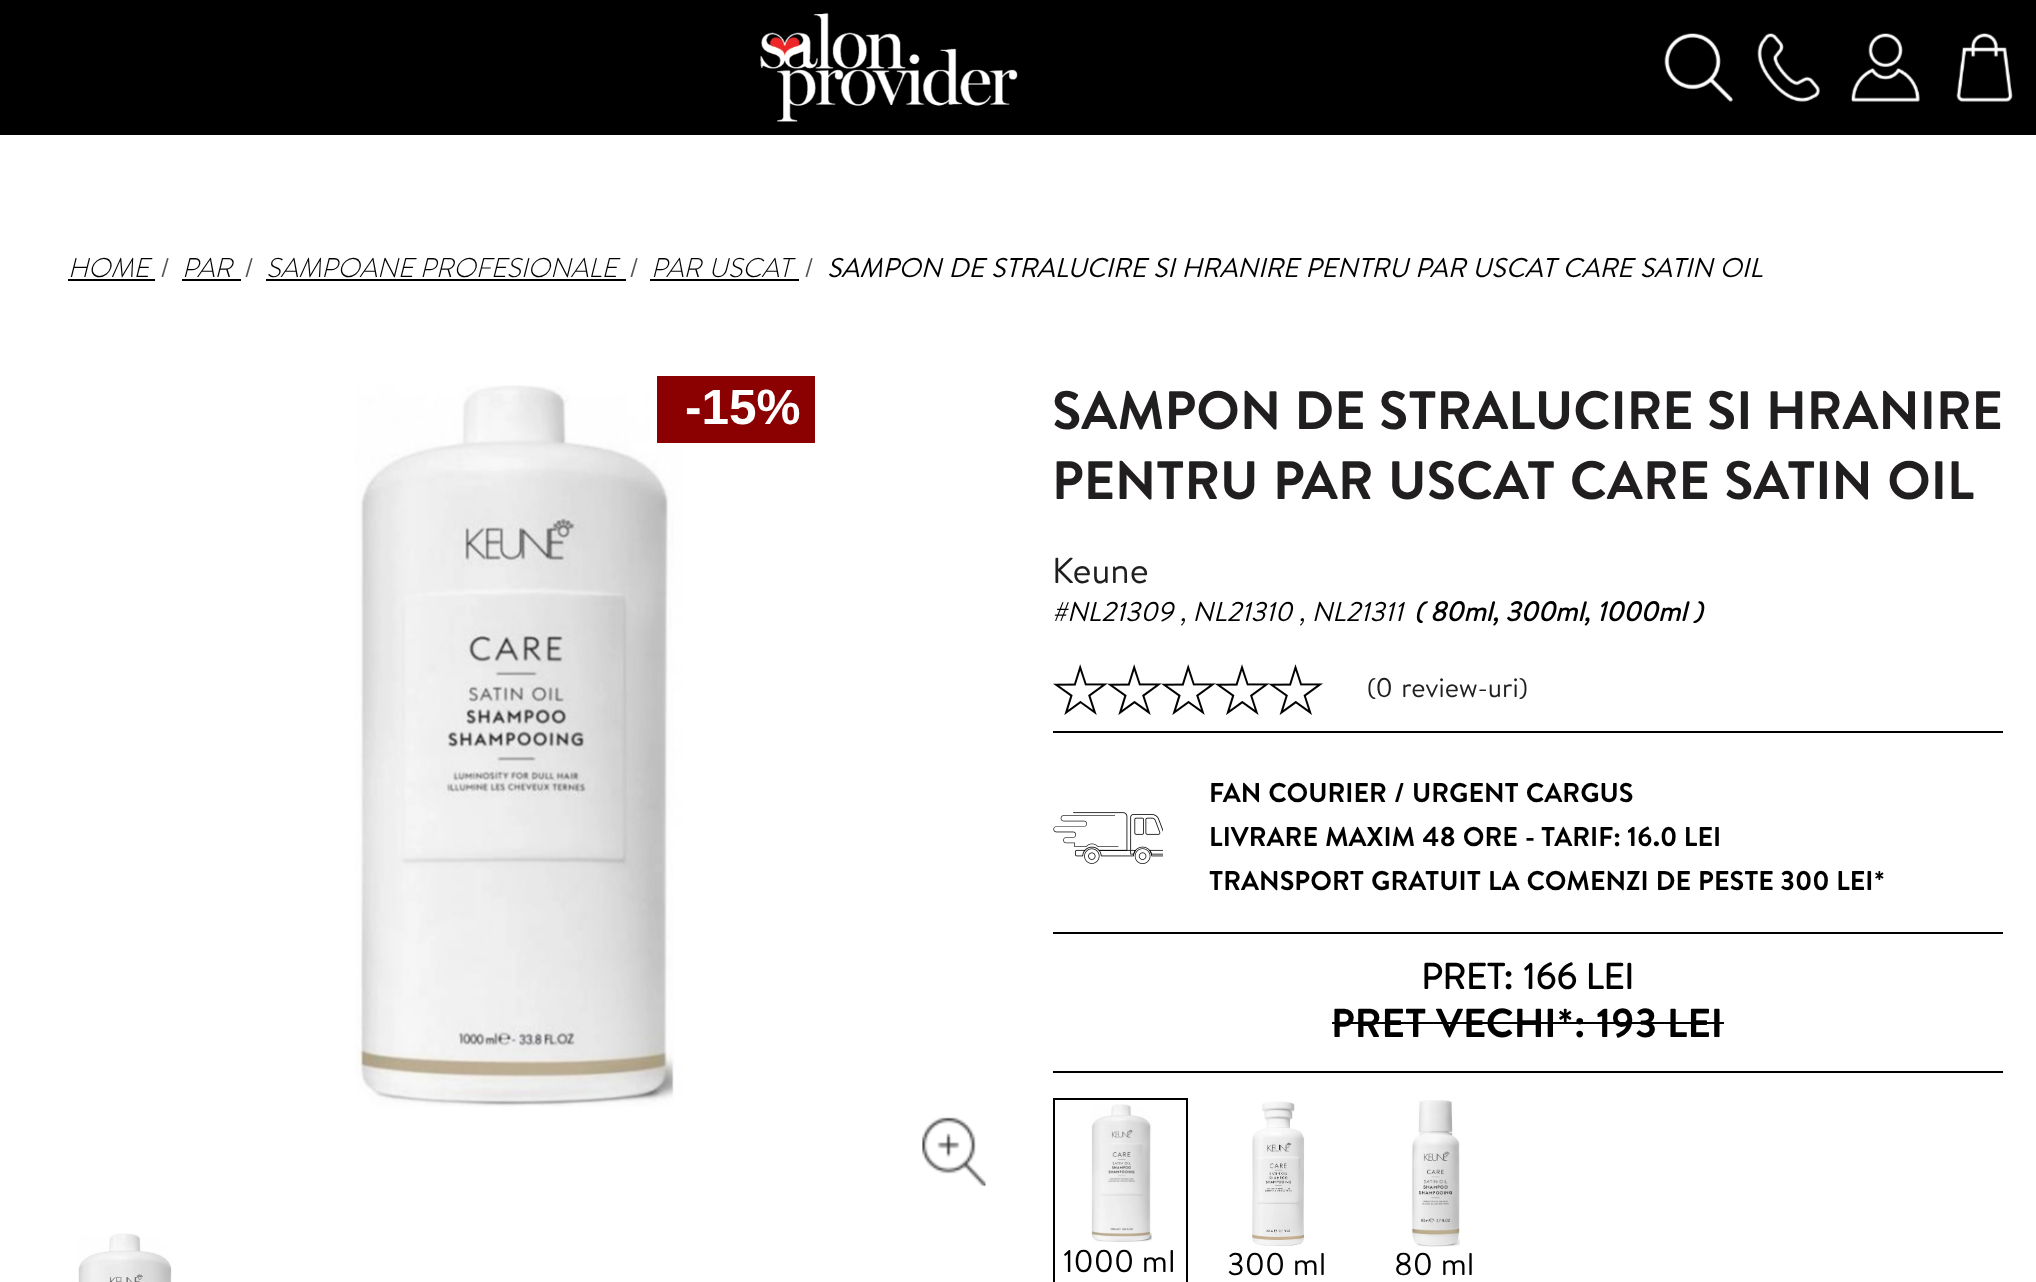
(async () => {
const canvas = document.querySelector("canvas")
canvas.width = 2036
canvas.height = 1282
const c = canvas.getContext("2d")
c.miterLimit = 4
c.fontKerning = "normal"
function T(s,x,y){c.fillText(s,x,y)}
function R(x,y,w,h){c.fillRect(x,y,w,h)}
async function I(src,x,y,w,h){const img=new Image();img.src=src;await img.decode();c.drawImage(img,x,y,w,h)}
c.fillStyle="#fff"
R(0,0,2036,1282)
c.fillStyle="#000"
R(0,0,2036,135)
await I("1.png",760,13,258,109)
await I("2.png",1664,33,69,69)
await I("3.png",1757,33,63,69)
await I("4.png",1851,33,69,69)
await I("5.png",1956,33,57,69)
c.font="italic 300 27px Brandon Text"
T("HOME",68,277)
R(68,279,87,2)
c.font="27px Brandon Text"
c.fillStyle="#565656"
T("/",160,277)
c.font="italic 300 27px Brandon Text"
c.fillStyle="#000"
T("PAR",182,277)
R(182,279,59,2)
c.font="27px Brandon Text"
c.fillStyle="#565656"
T("/",244,277)
c.font="italic 300 27px Brandon Text"
c.fillStyle="#000"
T("SAMPOANE PROFESIONALE",266,277)
R(266,279,360,2)
c.font="27px Brandon Text"
c.fillStyle="#565656"
T("/",629,277)
c.wordSpacing="1px"
c.font="italic 300 27px Brandon Text"
c.fillStyle="#000"
T("PAR USCAT",651,277)
R(650,279,149,2)
c.wordSpacing="0px"
c.font="27px Brandon Text"
c.fillStyle="#565656"
T("/",804,277)
c.wordSpacing="0.5px"
c.font="italic 27px Brandon Text"
c.fillStyle="#000"
T("SAMPON DE STRALUCIRE SI HRANIRE PENTRU PAR USCAT CARE SATIN OIL",827,277)
await I("6.png",355,385,328,722)
c.fillStyle="#8b0000"
R(657,376,158,67)
c.wordSpacing="0px"
c.font="bold 49.5px Liberation Sans"
c.fillStyle="#fff"
T("-15%",685,424)
await I("7.png",922,1117,64,69)
await I("8.png",78,1233,94,49)
c.wordSpacing="0.5px"
c.font="bold 54px Brandon Text"
c.fillStyle="#201e1f"
T("SAMPON DE STRALUCIRE SI HRANIRE",1052,429)
c.wordSpacing="1.5px"
T("PENTRU PAR USCAT CARE SATIN OIL",1052,499)
c.wordSpacing="0px"
c.font="36px Brandon Text"
T("Keune",1052,583)
c.font="italic 27px Brandon Text"
c.fillStyle="#000"
T("#NL21309 , NL21310 , NL21311",1052,621)
c.font="italic bold 27px Brandon Text"
T("( 80ml, 300ml, 1000ml )",1414,621)
R(1053,731,950,2)
await I("9.png",1053,664,270,51)
c.wordSpacing="2px"
c.font="27px Brandon Text"
c.fillStyle="#201e1f"
T("(0 review-uri)",1367,697)
c.fillStyle="#000"
R(1053,932,950,2)
await I("10.png",1053,812,110,52)
c.wordSpacing="0.5px"
c.font="bold 27px Brandon Text"
T("FAN COURIER / URGENT CARGUS",1209,802)
T("LIVRARE MAXIM 48 ORE - TARIF:",1209,846)
c.wordSpacing="0px"
T("16.0 LEI",1627,846)
c.wordSpacing="0.5px"
T("TRANSPORT GRATUIT LA COMENZI DE PESTE",1209,890)
c.wordSpacing="0px"
T("300 LEI*",1780,890)
R(1053,1071,950,2)
c.font="bold 36px 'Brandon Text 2'"
T("PRET:",1421,989)
T("166 LEI",1523,989)
c.font="bold 40.5px Brandon Text"
T("PRET VECHI*:",1331,1037)
R(1332,1022,263,2)
T("193 LEI",1596,1037)
R(1595,1022,129,2)
c.strokeStyle="#000"
c.lineWidth=2
c.strokeRect(1054,1099,133,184)
await I("11.png",1091,1104,61,138)
c.font="31.5px Brandon Text"
T("1000 ml",1063,1272)
await I("12.png",1252,1101,53,145)
T("300 ml",1227,1275)
await I("13.png",1411,1100,49,147)
T("80 ml",1394,1275)
})()
